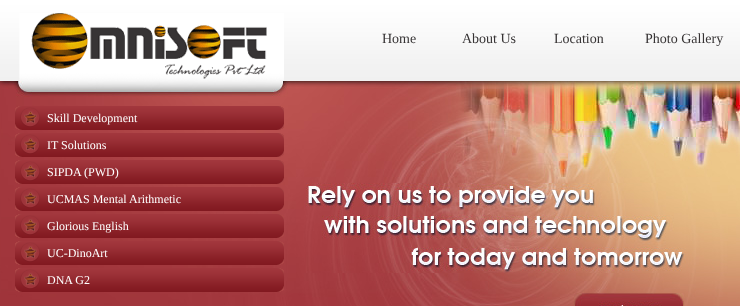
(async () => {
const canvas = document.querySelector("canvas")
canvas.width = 740
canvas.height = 306
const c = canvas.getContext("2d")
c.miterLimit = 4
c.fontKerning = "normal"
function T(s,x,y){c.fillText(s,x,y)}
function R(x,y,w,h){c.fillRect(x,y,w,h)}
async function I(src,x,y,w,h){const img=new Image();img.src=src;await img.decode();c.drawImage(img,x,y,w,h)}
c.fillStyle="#fff"
R(0,0,740,306)
await I("1.png",0,0,740,306)
await I("2.png",19,13,265,68)
c.font="14px Liberation Serif"
c.fillStyle="#363334"
T("Home",382,43)
T("About Us",462,43)
T("Location",554,43)
T("Photo Gallery",645,43)
await I("3.png",1,81,739,225)
await I("4.png",15,106,269,24)
c.font="12px Liberation Serif"
c.fillStyle="#fff"
T("Skill Development",47,122)
await I("5.png",15,133,269,24)
T("IT Solutions",47,149)
await I("6.png",15,160,269,24)
T("SIPDA (PWD)",47,176)
await I("7.png",15,187,269,24)
T("UCMAS Mental Arithmetic",47,203)
await I("8.png",15,214,269,24)
T("Glorious English",47,230)
await I("9.png",15,241,269,24)
T("UC-DinoArt",47,257)
await I("10.png",15,268,269,24)
T("DNA G2",47,284)
await I("11.png",306,183,380,90)
await I("12.png",574,293,110,13)
})()
